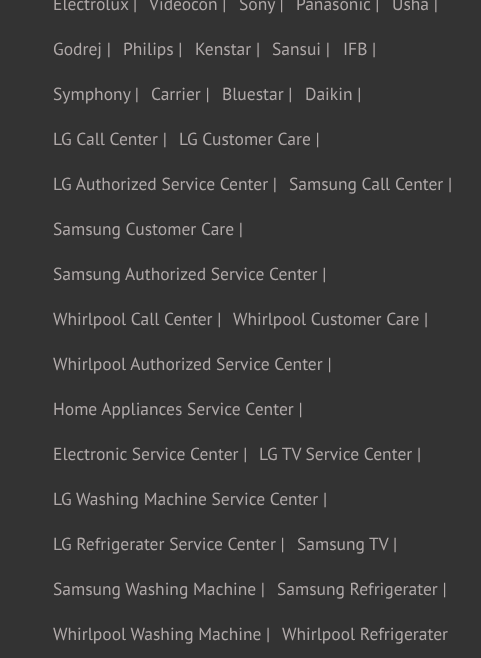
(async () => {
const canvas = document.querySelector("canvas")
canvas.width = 481
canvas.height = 658
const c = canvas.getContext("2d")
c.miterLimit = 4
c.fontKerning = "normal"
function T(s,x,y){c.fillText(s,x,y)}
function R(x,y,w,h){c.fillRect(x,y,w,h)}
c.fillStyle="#333"
R(0,0,481,658)
c.font="17.5px PT Sans"
c.fillStyle="#b0a9a9"
T("Electrolux |",53,10)
T("Videocon |",149,10)
T("Sony |",239,10)
T("Panasonic |",296,10)
T("Usha |",392,10)
T("Godrej |",53,55)
T("Philips |",123,55)
T("Kenstar |",195,55)
T("Sansui |",272,55)
T("IFB |",343,55)
T("Symphony |",53,100)
T("Carrier |",151,100)
T("Bluestar |",222,100)
T("Daikin |",305,100)
T("LG Call Center |",53,145)
T("LG Customer Care |",179,145)
T("LG Authorized Service Center |",53,190)
T("Samsung Call Center |",289,190)
T("Samsung Customer Care |",53,235)
T("Samsung Authorized Service Center |",53,280)
T("Whirlpool Call Center |",53,325)
T("Whirlpool Customer Care |",233,325)
T("Whirlpool Authorized Service Center |",53,370)
T("Home Appliances Service Center |",53,415)
T("Electronic Service Center |",53,460)
T("LG TV Service Center |",259,460)
T("LG Washing Machine Service Center |",53,505)
T("LG Refrigerater Service Center |",53,550)
T("Samsung TV |",297,550)
T("Samsung Washing Machine |",53,595)
T("Samsung Refrigerater |",277,595)
T("Whirlpool Washing Machine |",53,640)
T("Whirlpool Refrigerater",282,640)
})()
